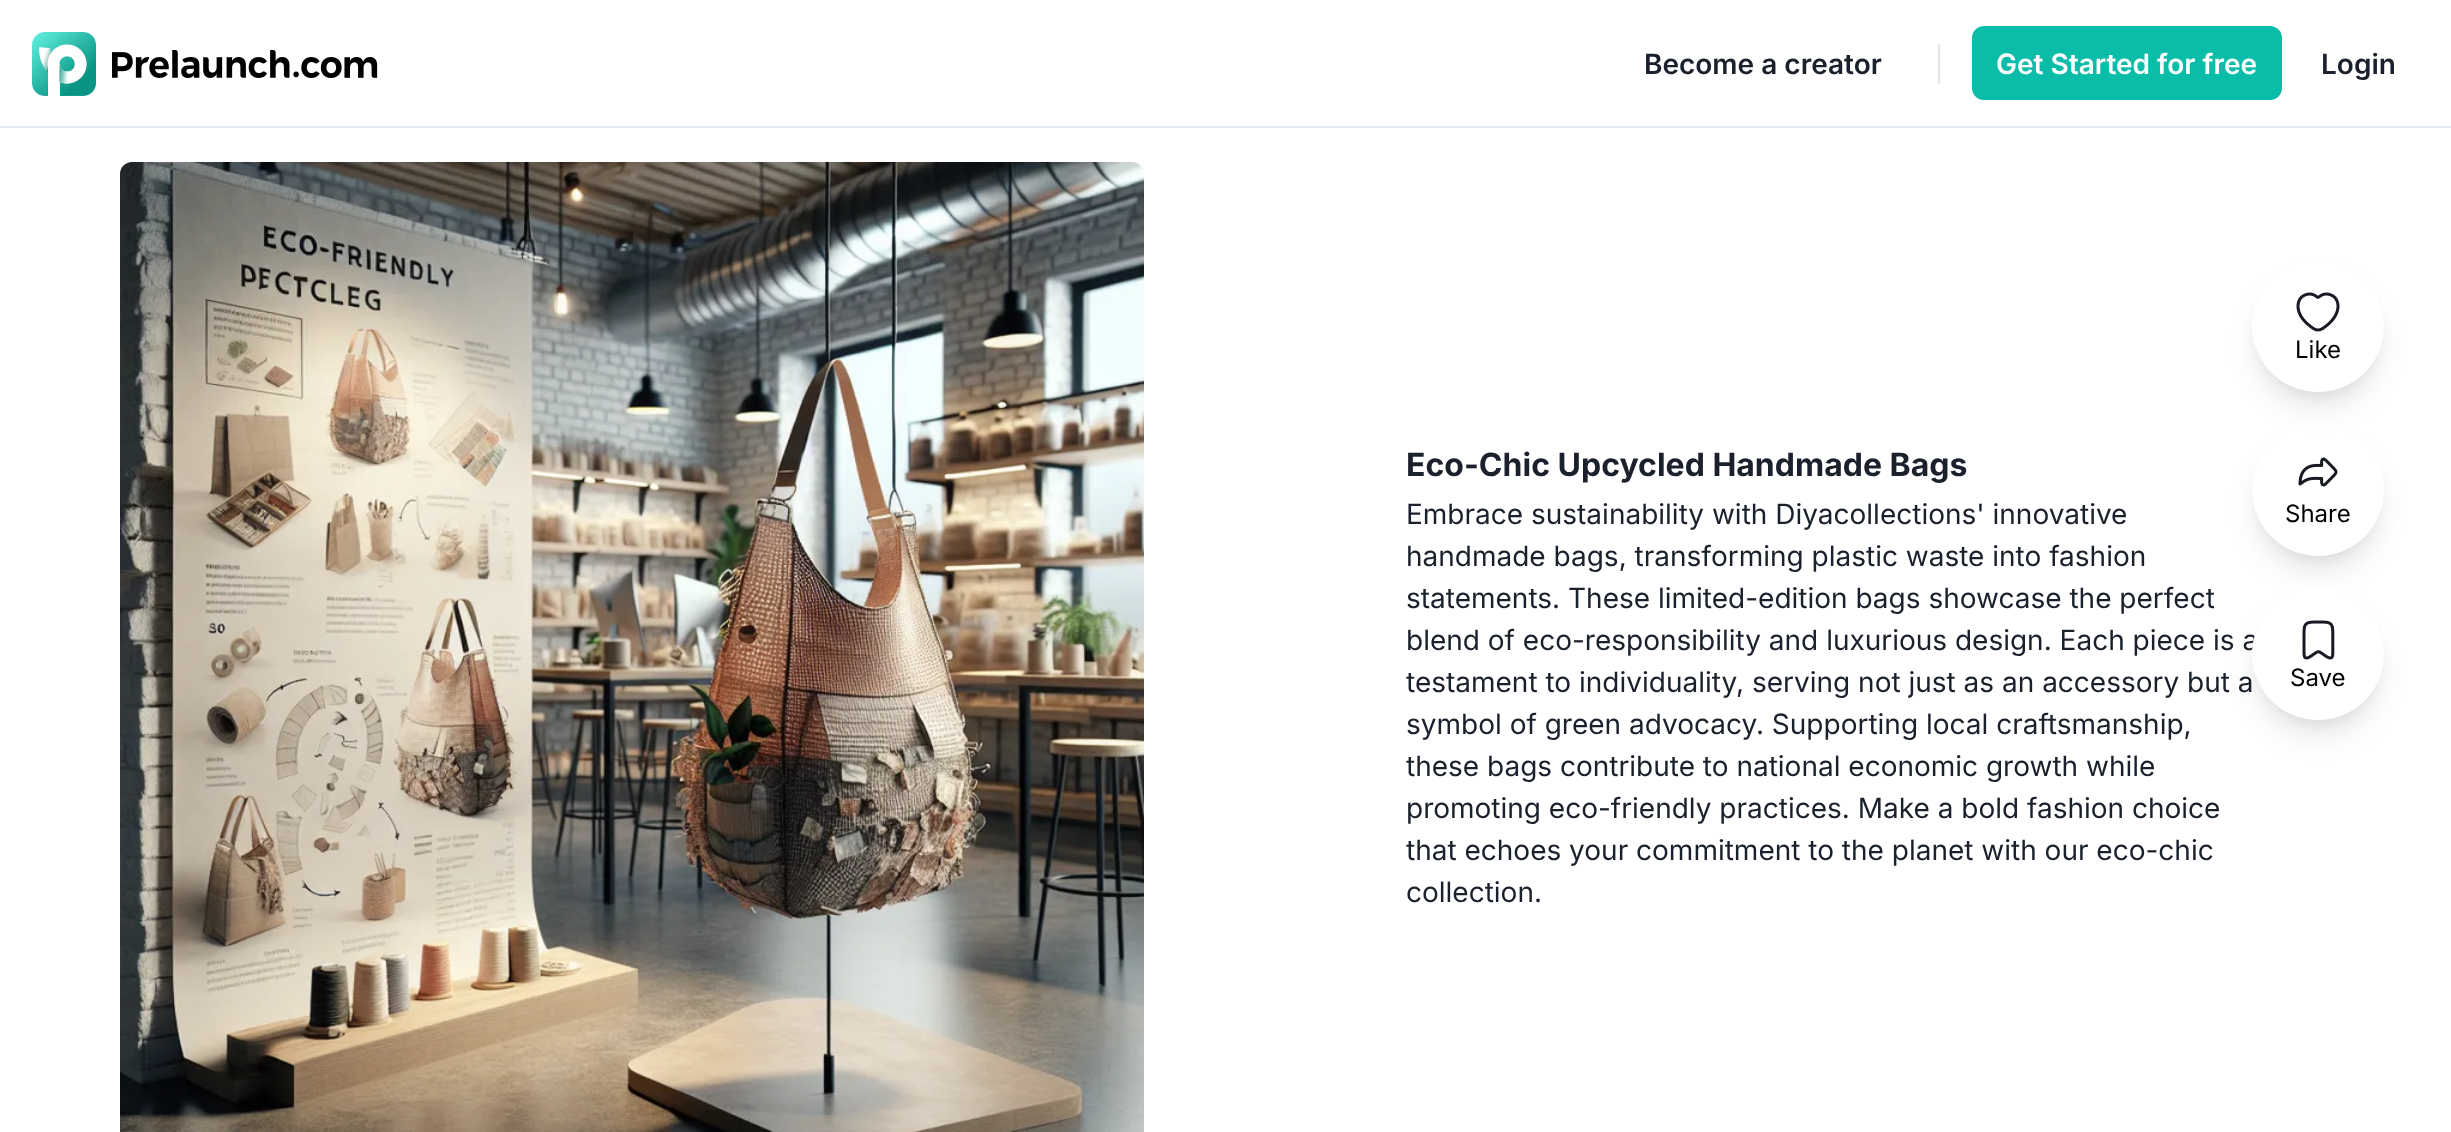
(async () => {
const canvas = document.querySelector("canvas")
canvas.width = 2451
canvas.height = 1132
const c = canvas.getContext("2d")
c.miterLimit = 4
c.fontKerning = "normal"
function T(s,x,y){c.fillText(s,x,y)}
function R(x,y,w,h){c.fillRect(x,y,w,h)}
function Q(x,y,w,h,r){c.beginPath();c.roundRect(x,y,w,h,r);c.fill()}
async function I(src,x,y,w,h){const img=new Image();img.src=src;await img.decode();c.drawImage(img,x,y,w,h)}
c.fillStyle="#fff"
R(0,0,2451,1132)
c.fillStyle="#e2e8f0"
R(0,126,2451,2)
await I("1.png",32,32,346,64)
c.font="600 28px Inter"
c.fillStyle="#1a202c"
T("Become a creator",1644,74)
c.fillStyle="#e0e6ec"
R(1938,44,2,40)
c.fillStyle="#09bda9"
Q(1972,26,310,74,12)
c.fillStyle="#fff"
T("Get Started for free",1996,74)
c.fillStyle="#1a202c"
T("Login",2321,74)
await I("2.png",120,162,1024,970)
c.font="bold 32px Inter"
T("Eco-Chic Upcycled Handmade Bags",1406,476)
c.font="28px Inter"
T("Embrace sustainability with Diyacollections' innovative",1406,524)
T("handmade bags, transforming plastic waste into fashion",1406,566)
T("statements. These limited-edition bags showcase the perfect",1406,608)
T("blend of eco-responsibility and luxurious design. Each piece is a",1406,650)
T("testament to individuality, serving not just as an accessory but a",1406,692)
T("symbol of green advocacy. Supporting local craftsmanship,",1406,734)
T("these bags contribute to national economic growth while",1406,776)
T("promoting eco-friendly practices. Make a bold fashion choice",1406,818)
T("that echoes your commitment to the planet with our eco-chic",1406,860)
T("collection.",1406,902)
c.fillStyle="#0000000d"
c.filter="blur(6px)"
c.beginPath()
c.roundRect(2256,272,124,124,62)
c.fill()
c.filter="none"
c.filter="blur(6px)"
c.beginPath()
c.roundRect(2256,436,124,124,62)
c.fill()
c.filter="none"
c.fillStyle="#0000001a"
c.filter="blur(15px)"
c.beginPath()
c.roundRect(2258,450,120,120,60)
c.fill()
c.filter="none"
c.fillStyle="#fff"
c.beginPath()
c.arc(2318,490,66,0,7)
c.fill()
c.fillStyle="#0000001a"
c.filter="blur(15px)"
c.beginPath()
c.roundRect(2258,286,120,120,60)
c.fill()
c.filter="none"
c.fillStyle="#fff"
c.beginPath()
c.arc(2318,326,66,0,7)
c.fill()
await I("3.png",2296,292,44,40)
c.font="24px Inter"
c.fillStyle="#000"
T("Like",2295,358)
await I("4.png",2298,457,40,30)
T("Share",2285,522)
c.fillStyle="#0000000d"
c.filter="blur(6px)"
c.beginPath()
c.roundRect(2256,600,124,124,62)
c.fill()
c.filter="none"
c.fillStyle="#0000001a"
c.filter="blur(15px)"
c.beginPath()
c.roundRect(2258,614,120,120,60)
c.fill()
c.filter="none"
c.fillStyle="#fff"
c.beginPath()
c.arc(2318,654,66,0,7)
c.fill()
await I("5.png",2302,620,33,40)
c.fillStyle="#000"
T("Save",2290,686)
})()
